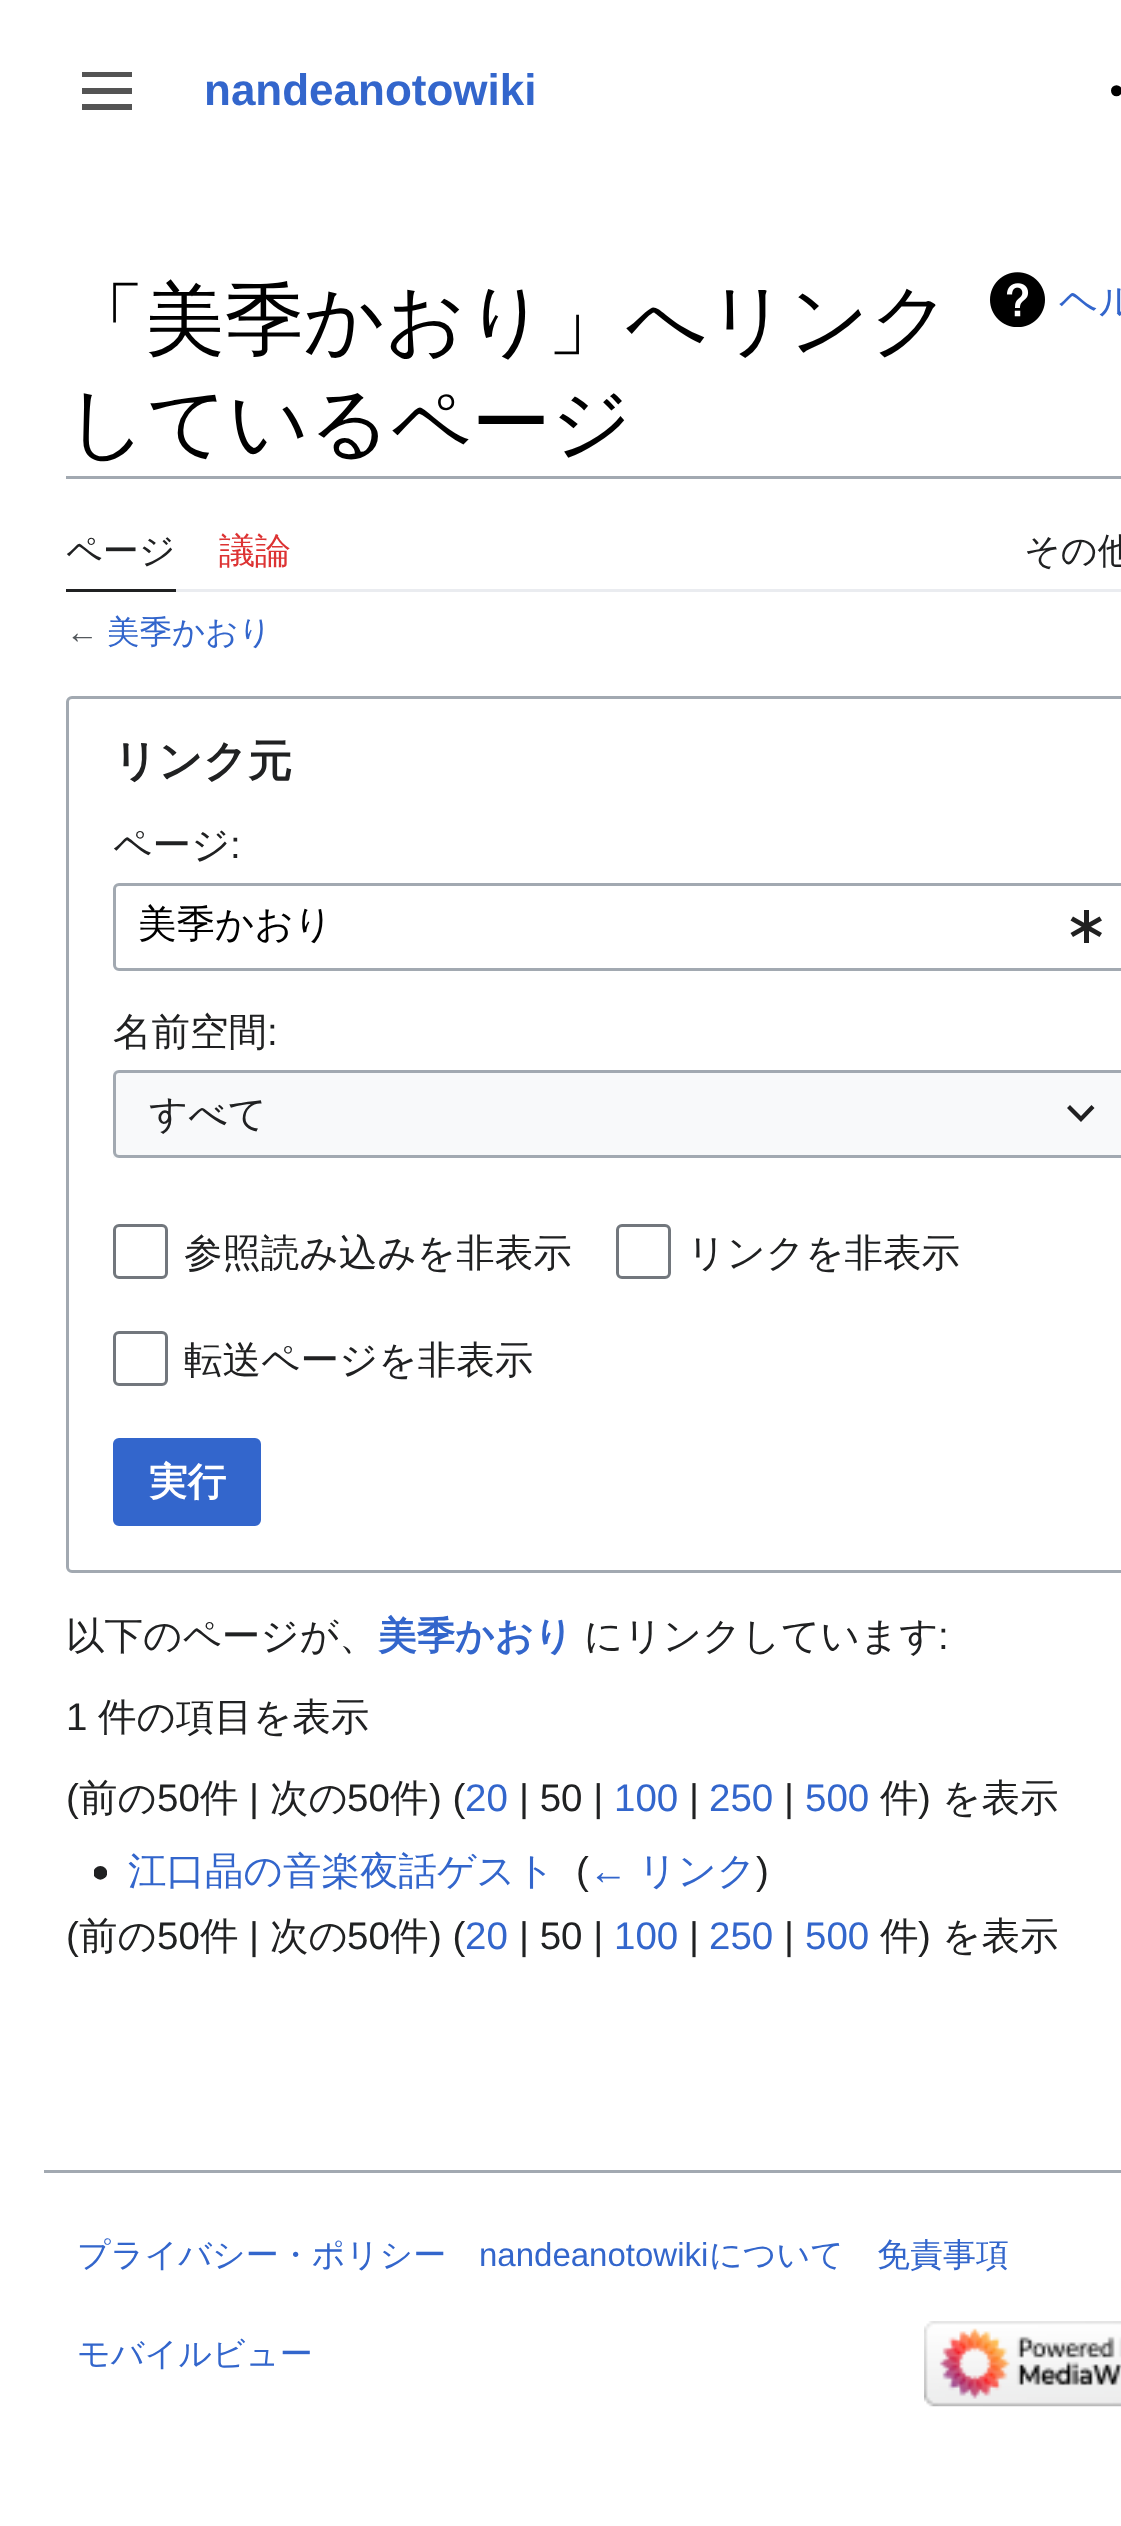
(async () => {
const canvas = document.querySelector("canvas")
canvas.width = 1121
canvas.height = 2526
const c = canvas.getContext("2d")
c.miterLimit = 4
c.fontKerning = "normal"
function T(s,x,y){c.fillText(s,x,y)}
function R(x,y,w,h){c.fillRect(x,y,w,h)}
async function I(src,x,y,w,h){const img=new Image();img.src=src;await img.decode();c.drawImage(img,x,y,w,h)}
let path
c.fillStyle="#fff"
R(0,0,1121,2526)
c.fillStyle="#545454"
path = new Path2D("M82 72v5h50v-5zm0 22h50v-6h-50zm0 16h50v-6h-50z")
c.fill(path)
c.font="bold 44px Liberation Sans"
c.fillStyle="#36c"
T("nandeanotowiki",204,105)
await I("1.png",1111,85,10,12)
c.fillStyle="#a2a9b1"
R(66,476,1055,3)
c.font="500 79.25px WenQuanYi Zen Hei"
c.fillStyle="#000"
T("「美季かおり」へリンク",66,347)
T("しているページ",66,450)
await I("2.png",990,272,55,55)
c.font="500 38.5px WenQuanYi Zen Hei"
c.fillStyle="#36c"
T("ヘル",1059,314)
c.fillStyle="#eaecf0"
R(176,589,945,3)
c.fillStyle="#202122"
R(66,589,110,3)
c.font="500 36px WenQuanYi Zen Hei"
T("ページ",66,563)
c.fillStyle="#d33"
T("議論",219,563)
c.fillStyle="#202122"
T("その他",1024,563)
c.font="32.5px Liberation Sans"
c.fillStyle="#54595d"
T("←",66,643)
c.font="500 32.5px WenQuanYi Zen Hei"
c.fillStyle="#36c"
T("美季かおり",107,643)
c.beginPath()
c.roundRect(67.5,697.5,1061,874,4.5)
c.strokeStyle="#a2a9b1"
c.lineWidth=3
c.stroke()
c.font="bold 44px WenQuanYi Zen Hei"
c.fillStyle="#202122"
T("リンク元",113,776)
c.font="500 38.5px WenQuanYi Zen Hei"
T("ページ",113,858)
c.font="38.5px Liberation Sans"
T(":",230,858)
c.beginPath()
c.roundRect(114.5,884.5,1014,85,4.5)
c.stroke()
c.font="500 38.5px WenQuanYi Zen Hei"
c.fillStyle="#000"
T("美季かおり",138,937)
c.fillStyle="#212121"
R(1084,910,5,33)
path = new Path2D("M1102 933l-2.5 4l-29-16.5l2.5-4z")
c.fill(path)
path = new Path2D("M1099.5 916.5l2.5 4l-29 16.5l-2.5-4z")
c.fill(path)
c.fillStyle="#202122"
T("名前空間",113,1045)
c.font="38.5px Liberation Sans"
T(":",267,1045)
c.fillStyle="#f8f9fa"
R(113,1070,1008,88)
c.beginPath()
c.roundRect(114.5,1071.5,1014,85,4.5)
c.stroke()
c.font="500 38.5px WenQuanYi Zen Hei"
c.fillStyle="#202122"
T("すべて",149,1127)
c.fillStyle="#202021"
path = new Path2D("M1091.5 1105l-10.5 11l-11-11l-3 3l14 14l13.5-14z")
c.fill(path)
c.beginPath()
c.roundRect(114.5,1225.5,52,52,4.5)
c.strokeStyle="#72777d"
c.stroke()
c.fillStyle="#202122"
T("参照読み込みを非表示",184,1266)
c.beginPath()
c.roundRect(617.5,1225.5,52,52,4.5)
c.stroke()
T("リンクを非表示",687,1266)
c.beginPath()
c.roundRect(114.5,1332.5,52,52,4.5)
c.stroke()
T("転送ページを非表示",184,1373)
c.fillStyle="#36c"
c.beginPath()
c.roundRect(114.5,1439.5,145,85,4.5)
c.fill()
c.strokeStyle="#36c"
c.stroke()
c.font="bold 38.5px WenQuanYi Zen Hei"
c.fillStyle="#fff"
T("実行",149,1495)
c.font="500 38.5px WenQuanYi Zen Hei"
c.fillStyle="#202122"
T("以下のページが、",66,1649)
c.font="bold 38.5px WenQuanYi Zen Hei"
c.fillStyle="#36c"
T("美季かおり",378,1649)
c.font="500 38.5px WenQuanYi Zen Hei"
c.fillStyle="#202122"
T("にリンクしています",584,1649)
c.font="38.5px Liberation Sans"
T(":",938,1649)
T("1",66,1730)
c.font="500 38.5px WenQuanYi Zen Hei"
T("件の項目を表示",98,1730)
c.font="38.5px Liberation Sans"
T("(",66,1811)
c.font="500 38.5px WenQuanYi Zen Hei"
T("前の",79,1811)
c.font="38.5px Liberation Sans"
T("50",157,1811)
c.font="500 38.5px WenQuanYi Zen Hei"
T("件",200,1811)
c.font="38.5px Liberation Sans"
T("|",249,1811)
c.font="500 38.5px WenQuanYi Zen Hei"
T("次の",270,1811)
c.font="38.5px Liberation Sans"
T("50",347,1811)
c.font="500 38.5px WenQuanYi Zen Hei"
T("件",390,1811)
c.font="38.5px Liberation Sans"
T(") (",429,1811)
c.fillStyle="#36c"
T("20",465,1811)
c.fillStyle="#202122"
T("| 50 |",519,1811)
c.fillStyle="#36c"
T("100",614,1811)
c.fillStyle="#202122"
T("|",689,1811)
c.fillStyle="#36c"
T("250",709,1811)
c.fillStyle="#202122"
T("|",784,1811)
c.fillStyle="#36c"
T("500",805,1811)
c.font="500 38.5px WenQuanYi Zen Hei"
c.fillStyle="#202122"
T("件",880,1811)
c.font="38.5px Liberation Sans"
T(")",918,1811)
c.font="500 38.5px WenQuanYi Zen Hei"
T("を表示",942,1811)
await I("3.png",94,1866,13,14)
c.fillStyle="#36c"
T("江口晶の音楽夜話ゲスト",128,1884)
c.font="38.5px Liberation Sans"
c.fillStyle="#202122"
T("(",576,1884)
c.fillStyle="#36c"
T("←",589,1884)
c.font="500 38.5px WenQuanYi Zen Hei"
T("リンク",638,1884)
c.font="38.5px Liberation Sans"
c.fillStyle="#202122"
T(")",756,1884)
T("(",66,1949)
c.font="500 38.5px WenQuanYi Zen Hei"
T("前の",79,1949)
c.font="38.5px Liberation Sans"
T("50",157,1949)
c.font="500 38.5px WenQuanYi Zen Hei"
T("件",200,1949)
c.font="38.5px Liberation Sans"
T("|",249,1949)
c.font="500 38.5px WenQuanYi Zen Hei"
T("次の",270,1949)
c.font="38.5px Liberation Sans"
T("50",347,1949)
c.font="500 38.5px WenQuanYi Zen Hei"
T("件",390,1949)
c.font="38.5px Liberation Sans"
T(") (",429,1949)
c.fillStyle="#36c"
T("20",465,1949)
c.fillStyle="#202122"
T("| 50 |",519,1949)
c.fillStyle="#36c"
T("100",614,1949)
c.fillStyle="#202122"
T("|",689,1949)
c.fillStyle="#36c"
T("250",709,1949)
c.fillStyle="#202122"
T("|",784,1949)
c.fillStyle="#36c"
T("500",805,1949)
c.font="500 38.5px WenQuanYi Zen Hei"
c.fillStyle="#202122"
T("件",880,1949)
c.font="38.5px Liberation Sans"
T(")",918,1949)
c.font="500 38.5px WenQuanYi Zen Hei"
T("を表示",942,1949)
c.fillStyle="#a2a9b1"
R(44,2170,1077,3)
c.font="500 33px WenQuanYi Zen Hei"
c.fillStyle="#36c"
T("プライバシー・ポリシー",77,2266)
c.font="33px Liberation Sans"
T("nandeanotowiki",479,2266)
c.font="500 33px WenQuanYi Zen Hei"
T("について",709,2266)
T("免責事項",877,2266)
T("モバイルビュー",77,2365)
await I("4.png",924,2321,197,86)
})()
